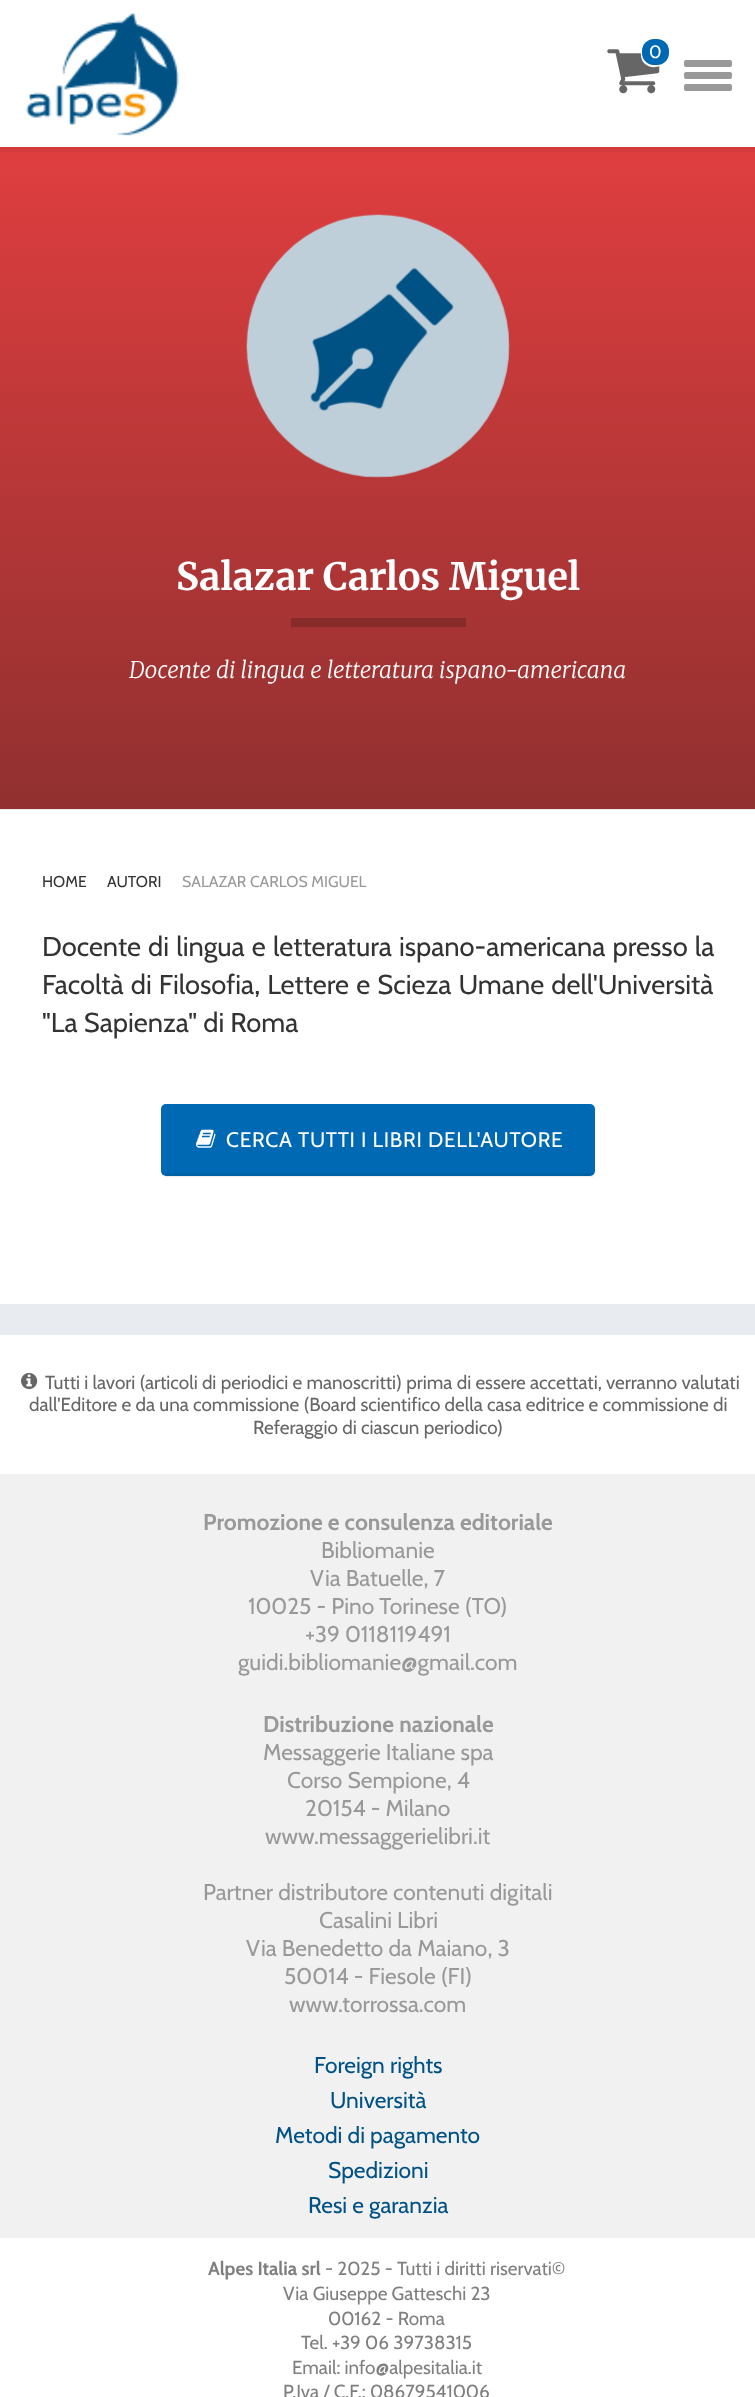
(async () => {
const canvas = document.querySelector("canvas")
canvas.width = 755
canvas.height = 2397
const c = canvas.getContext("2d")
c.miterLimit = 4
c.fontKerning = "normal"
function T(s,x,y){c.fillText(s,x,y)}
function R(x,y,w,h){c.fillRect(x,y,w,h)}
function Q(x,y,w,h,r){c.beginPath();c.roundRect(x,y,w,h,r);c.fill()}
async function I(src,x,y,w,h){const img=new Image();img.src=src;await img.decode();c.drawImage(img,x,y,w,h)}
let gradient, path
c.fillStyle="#e8ecf0"
R(0,0,755,2397)
c.fillStyle="#fff"
R(0,0,755,147)
await I("1.png",26,12,153,124)
await I("2.png",607,49,53,45)
path = new Path2D("M645 43c-5.5 5-5.5 15.5-.5 20.5c6 6 17.5 4.5 21.5-3.5c-5 6-15 6.5-20 1c-4.5-4.5-5-13-1-18z")
c.fill(path)
c.fillStyle="#0069b4"
Q(642,39,27,26,12)
c.font="18px Cabin"
c.fillStyle="#fff"
T("0",649,58)
c.fillStyle="#999"
Q(684,60,48,7,2)
Q(684,72,48,7,2)
Q(684,84,48,7,2)
c.fillStyle="#d43b3c"
R(0,147,755,5)
gradient = c.createLinearGradient(378,143,378,809)
gradient.addColorStop(0,"#e03e3f")
gradient.addColorStop(1,"#913030")
c.fillStyle = gradient
R(0,152,755,657)
await I("3.png",246,214,264,264)
c.font="bold 37.75px Merriweather"
c.fillStyle="#fff"
T("Salazar Carlos Miguel",176,590)
c.fillStyle="#862a2a"
R(291,618,175,9)
c.font="italic 300 22.75px Merriweather"
c.fillStyle="#fff"
T("Docente di lingua e letteratura ispano-americana",129,678)
R(0,810,755,494)
c.font="15.75px Cabin"
c.fillStyle="#333"
T("HOME",42,887)
T("AUTORI",107,887)
c.fillStyle="#999"
T("SALAZAR CARLOS MIGUEL",182,887)
c.wordSpacing="1px"
c.font="27.3px Cabin"
c.fillStyle="#333"
T("Docente di lingua e letteratura ispano-americana presso la",42,956)
T("Facoltà di Filosofia, Lettere e Scieza Umane dell'Università",42,994)
c.wordSpacing="0px"
T("\"La Sapienza\" di Roma",42,1032)
c.fillStyle="#0069b4"
Q(161,1104,434,72,5)
c.fillStyle="#00000012"
R(165,1173,428,4)
await I("4.png",196,1129,20,19)
c.letterSpacing="0.7px"
c.font="21px Cabin"
c.fillStyle="#fff"
T("CERCA TUTTI I LIBRI DELL'AUTORE",226,1147)
R(0,1335,755,1062)
await I("5.png",21,1372,17,18)
c.letterSpacing="0px"
c.font="18.9px Cabin"
c.fillStyle="#666"
T("Tutti i lavori (articoli di periodici e manoscritti) prima di essere accettati, verranno valutati",45,1389)
T("dall'Editore e da una commissione (Board scientifico della casa editrice e commissione di",29,1411)
T("Referaggio di ciascun periodico)",253,1434)
c.fillStyle="#f1f1f1"
R(0,1474,755,764)
c.font="bold 22.75px Cabin"
c.fillStyle="#999"
T("Promozione e consulenza editoriale",203,1530)
c.font="22.75px Cabin"
T("Bibliomanie",321,1558)
T("Via Batuelle, 7",310,1586)
T("10025 - Pino Torinese (TO)",248,1614)
T("+39 0118119491",305,1642)
T("guidi.bibliomanie@gmail.com",238,1670)
c.font="bold 22.75px Cabin"
T("Distribuzione nazionale",263,1732)
c.font="22.75px Cabin"
T("Messaggerie Italiane spa",263,1760)
T("Corso Sempione, 4",287,1788)
T("20154 - Milano",305,1816)
T("www.messaggerielibri.it",265,1844)
T("Partner distributore contenuti digitali",203,1900)
T("Casalini Libri",319,1928)
T("Via Benedetto da Maiano, 3",246,1956)
T("50014 - Fiesole (FI)",284,1984)
T("www.torrossa.com",289,2012)
c.fillStyle="#005285"
T("Foreign rights",314,2073)
T("Università",330,2108)
T("Metodi di pagamento",275,2143)
T("Spedizioni",328,2178)
T("Resi e garanzia",308,2213)
c.font="bold 18.9px Cabin"
c.fillStyle="#7f7f7f"
T("Alpes Italia srl",208,2275)
c.font="18.9px Cabin"
T("- 2025 - Tutti i diritti riservati©",325,2275)
T("Via Giuseppe Gatteschi 23",283,2300)
T("00162 - Roma",328,2325)
T("Tel. +39 06 39738315",301,2349)
T("Email: info@alpesitalia.it",292,2374)
T("P.Iva / C.F.: 08679541006",283,2398)
})()
